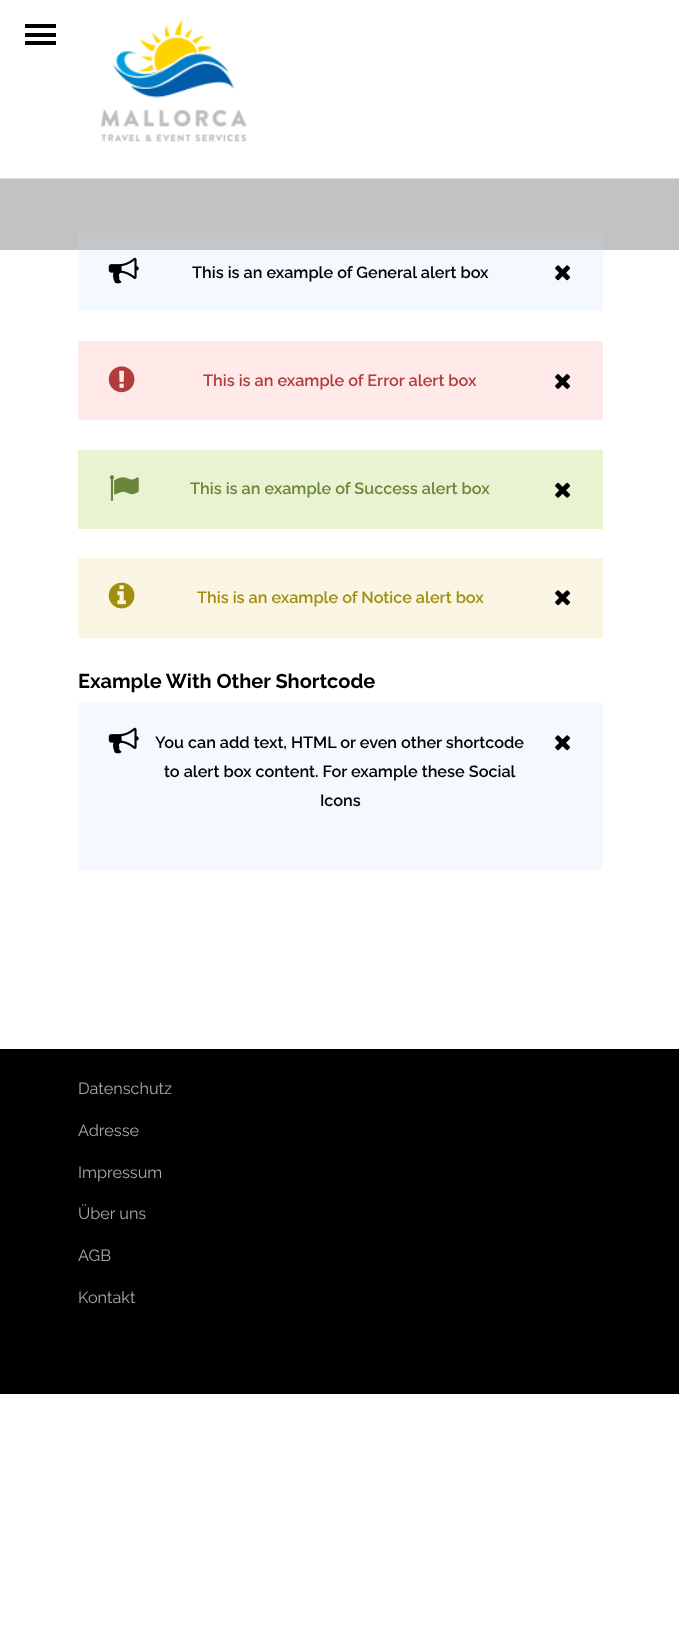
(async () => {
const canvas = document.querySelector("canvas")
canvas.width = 679
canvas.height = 1625
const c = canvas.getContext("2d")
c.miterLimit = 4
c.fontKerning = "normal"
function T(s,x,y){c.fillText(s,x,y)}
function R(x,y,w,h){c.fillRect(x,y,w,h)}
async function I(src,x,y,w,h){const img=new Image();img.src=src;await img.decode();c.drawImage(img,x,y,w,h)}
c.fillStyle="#fff"
R(0,0,679,1625)
c.fillStyle="#e1e1e1"
R(0,178,679,1)
c.fillStyle="#000"
R(25,24,31,4)
R(25,33,31,4)
R(25,41,31,4)
await I("1.png",101,20,146,122)
c.fillStyle="#c2c2c2"
R(0,179,679,71)
c.fillStyle="#f4f9ff"
R(78,250,525,61)
c.fillStyle="#c3c7cc"
R(78,233,525,17)
await I("2.png",108,257,31,27)
c.font="600 16.25px Raleway"
c.fillStyle="#000"
T("This is an example of General alert box",192,278)
await I("3.png",555,265,15,16)
c.fillStyle="#ffe9e9"
R(78,341,525,79)
await I("4.png",108,366,27,27)
c.fillStyle="#b13c3c"
T("This is an example of Error alert box",203,386)
await I("5.png",555,374,15,15)
c.fillStyle="#e9f3d2"
R(78,450,525,79)
await I("6.png",109,475,30,26)
c.fillStyle="#6a863b"
T("This is an example of Success alert box",190,494)
await I("7.png",555,482,15,16)
c.fillStyle="#fbf6e3"
R(78,558,525,80)
await I("8.png",108,582,27,27)
c.fillStyle="#a18e0f"
T("This is an example of Notice alert box",197,603)
await I("9.png",555,590,15,16)
c.font="bold 20px Raleway"
c.fillStyle="#000"
T("Example With Other Shortcode",78,688)
c.fillStyle="#f4f9ff"
R(78,703,525,167)
await I("2.png",108,727,31,27)
c.font="600 16.25px Raleway"
c.fillStyle="#000"
T("You can add text, HTML or even other shortcode",155,748)
T("to alert box content. For example these Social",164,777)
T("Icons",320,806)
await I("3.png",555,735,15,16)
R(0,1049,679,345)
c.font="16.25px Raleway"
c.fillStyle="#aaa"
T("Datenschutz",78,1094)
T("Adresse",78,1136)
T("Impressum",78,1178)
T("Über uns",78,1219)
T("AGB",78,1261)
T("Kontakt",78,1303)
})()
